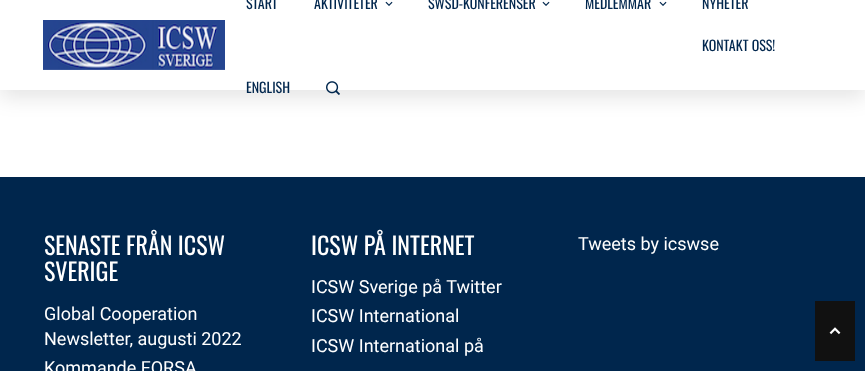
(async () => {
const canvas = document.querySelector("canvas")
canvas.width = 865
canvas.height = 371
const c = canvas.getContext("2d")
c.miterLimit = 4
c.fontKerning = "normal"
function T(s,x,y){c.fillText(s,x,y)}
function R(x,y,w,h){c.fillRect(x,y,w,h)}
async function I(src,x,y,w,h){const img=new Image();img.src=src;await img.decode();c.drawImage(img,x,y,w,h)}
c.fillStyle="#fff"
R(0,0,865,371)
c.fillStyle="#0000001a"
c.filter="blur(10px)"
c.beginPath()
c.rect(0,8,865,90)
c.fill()
c.filter="none"
c.fillStyle="#fff"
R(0,0,865,90)
await I("1.png",43,20,182,50)
c.font="14px Oswald"
c.fillStyle="#00264d"
T("START",246,9)
T("AKTIVITETER",314,9)
await I("2.png",385,1,8,5)
T("SWSD-KONFERENSER",428,9)
await I("2.png",542,1,8,5)
T("MEDLEMMAR",585,9)
await I("2.png",659,1,8,5)
T("NYHETER",702,9)
T("KONTAKT OSS!",702,51)
T("ENGLISH",246,93)
await I("3.png",326,81,14,14)
R(0,177,865,194)
c.font="24px Oswald"
c.fillStyle="#fff"
T("SENASTE FRÅN ICSW",44,255)
T("SVERIGE",44,281)
c.font="18px Roboto"
T("Global Cooperation",44,320)
T("Newsletter, augusti 2022",44,345)
T("Kommande FORSA",44,374)
c.font="24px Oswald"
T("ICSW PÅ INTERNET",311,255)
c.font="18px Roboto"
T("ICSW Sverige på Twitter",311,293)
T("ICSW International",311,322)
T("ICSW International på",311,352)
T("Tweets by icswse",578,250)
c.fillStyle="#111"
R(815,301,40,60)
await I("4.png",829,327,12,8)
})()
